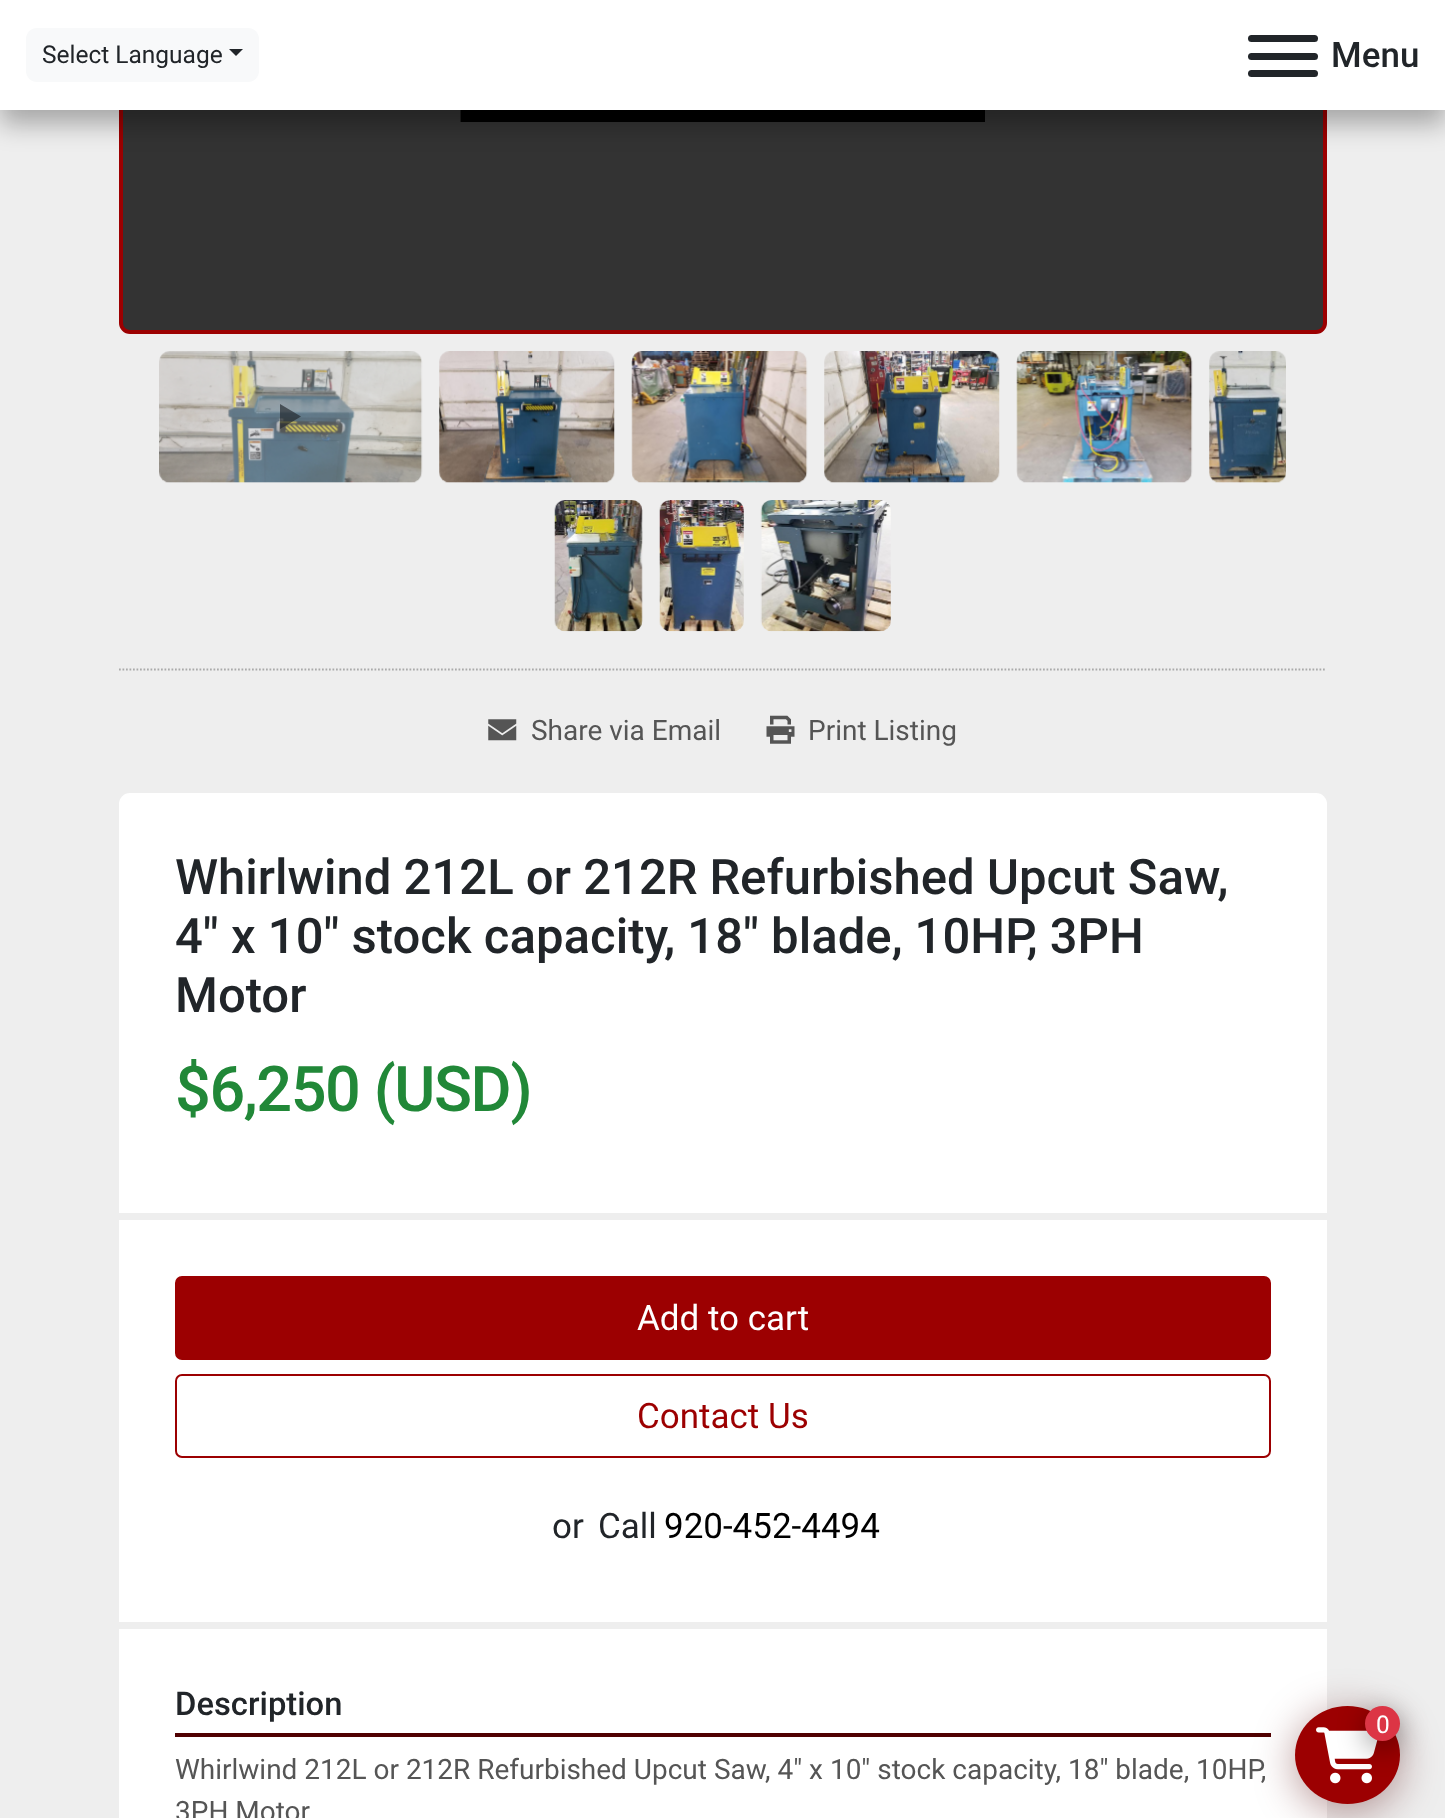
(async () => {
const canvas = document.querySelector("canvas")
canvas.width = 1445
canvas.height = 1818
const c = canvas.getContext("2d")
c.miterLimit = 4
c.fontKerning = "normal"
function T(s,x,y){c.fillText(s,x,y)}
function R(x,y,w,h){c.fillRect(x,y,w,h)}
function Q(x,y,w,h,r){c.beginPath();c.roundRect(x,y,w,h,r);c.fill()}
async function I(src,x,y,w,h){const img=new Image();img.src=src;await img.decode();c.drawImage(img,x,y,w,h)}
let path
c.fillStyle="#eee"
R(0,0,1445,1818)
c.fillStyle="#333"
c.beginPath()
c.roundRect(121,-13,1204,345,9)
c.fill()
c.strokeStyle="#9c0001"
c.lineWidth=4
c.stroke()
await I("1.png",460,110,525,12)
c.fillStyle="#0000004d"
c.filter="blur(13px)"
c.beginPath()
c.rect(0,14,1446,110)
c.fill()
c.filter="none"
c.fillStyle="#fff"
R(0,0,1445,110)
c.fillStyle="#f8f9fa"
Q(26,28,233,54,11)
c.font="24.5px Roboto"
c.fillStyle="#212529"
T("Select Language",42,63)
path = new Path2D("M229 49h14l-7 7z")
c.fill(path)
Q(1248,53,70,7,3.5)
Q(1248,35,70,7,3.5)
Q(1248,70,70,7,3.5)
c.font="500 35px Roboto"
T("Menu",1331,67)
await I("2.png",159,351,264,132)
c.fillStyle="#212529a6"
path = new Path2D("M301 416.5l-21-12.5l21 12.5l-21-12.5v25z")
c.fill(path)
await I("3.png",439,351,176,132)
await I("4.png",631,351,177,132)
await I("5.png",824,351,176,132)
await I("6.png",1016,351,177,132)
await I("7.png",1209,351,77,132)
await I("8.png",554,500,89,132)
await I("9.png",659,500,85,132)
await I("10.png",760,500,131,132)
path = new Path2D("M119 669.5h1207.5")
c.strokeStyle="#aaa"
c.lineWidth=1.8
c.setLineDash([1.75,1.75])
c.stroke(path)
await I("11.png",488,719,29,22)
c.font="28px Roboto"
c.fillStyle="#555"
T("Share via Email",531,740)
await I("12.png",766,715,29,29)
T("Print Listing",808,740)
c.fillStyle="#fff"
Q(119,793,1208,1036,11)
c.font="500 49px Roboto"
c.fillStyle="#212529"
T("Whirlwind 212L or 212R Refurbished Upcut Saw,",175,894)
T("4\" x 10\" stock capacity, 18\" blade, 10HP, 3PH",175,953)
T("Motor",175,1012)
c.letterSpacing="-1.4px"
c.font="500 63px Roboto"
c.fillStyle="#218838"
T("$6,250 (USD)",175,1111)
c.fillStyle="#eee"
R(119,1213,1208,7)
R(119,1622,1208,7)
c.fillStyle="#9c0001"
c.beginPath()
c.roundRect(176,1277,1094,82,6)
c.fill()
c.strokeStyle="#9c0001"
c.lineWidth=2
c.setLineDash([])
c.stroke()
c.letterSpacing="0px"
c.font="35px Roboto"
c.fillStyle="#fff"
T("Add to cart",637,1330)
c.beginPath()
c.roundRect(176,1375,1094,82,6)
c.stroke()
c.fillStyle="#9c0001"
T("Contact Us",637,1428)
c.fillStyle="#212529"
T("or",552,1538)
T("Call",598,1538)
c.fillStyle="#000"
T("920-452-4494",664,1538)
c.fillStyle="#500001"
R(175,1733,1096,4)
c.font="500 32.75px Roboto"
c.fillStyle="#212529"
T("Description",175,1715)
c.font="28px Roboto"
c.fillStyle="#555"
T("Whirlwind 212L or 212R Refurbished Upcut Saw, 4\" x 10\" stock capacity, 18\" blade, 10HP,",175,1779)
T("3PH Motor",175,1821)
c.fillStyle="#50000166"
c.filter="blur(21px)"
c.beginPath()
c.roundRect(1295,1713,105,98,49)
c.fill()
c.filter="none"
c.fillStyle="#9c0001"
c.beginPath()
c.ellipse(1347.5,1755,52.5,49,0,0,7)
c.fill()
await I("13.png",1316,1727,62,57)
c.fillStyle="#00000066"
c.filter="blur(14px)"
c.beginPath()
c.roundRect(1365,1713,35,35,17.5)
c.fill()
c.filter="none"
c.fillStyle="#dc3545"
c.beginPath()
c.arc(1382.5,1723.5,17.5,0,7)
c.fill()
c.font="24.5px Roboto"
c.fillStyle="#fff"
T("0",1376,1733)
})()
